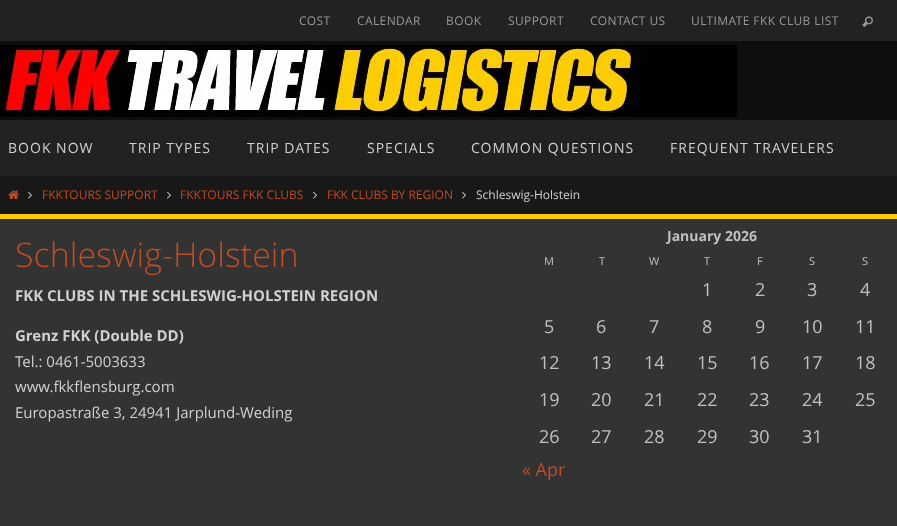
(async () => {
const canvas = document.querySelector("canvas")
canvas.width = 897
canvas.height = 526
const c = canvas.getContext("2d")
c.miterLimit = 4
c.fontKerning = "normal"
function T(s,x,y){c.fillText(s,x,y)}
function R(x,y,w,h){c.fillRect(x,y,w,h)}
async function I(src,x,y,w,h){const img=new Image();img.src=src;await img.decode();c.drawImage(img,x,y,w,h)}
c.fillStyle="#fc0"
R(0,0,897,526)
c.fillStyle="#222"
R(0,0,897,41)
c.letterSpacing="0.4px"
c.font="12px Open Sans"
c.fillStyle="#999"
T("COST",299,25)
T("CALENDAR",357,25)
T("BOOK",446,25)
T("SUPPORT",508,25)
T("CONTACT US",590,25)
T("ULTIMATE FKK CLUB LIST",691,25)
await I("1.png",862,16,11,11)
c.fillStyle="#0e0e0e"
R(0,41,897,79)
await I("2.png",0,45,737,72)
c.fillStyle="#222"
R(0,120,897,56)
c.letterSpacing="1px"
c.font="14px Open Sans"
c.fillStyle="#d0d0d0"
T("BOOK NOW",8,153)
T("TRIP TYPES",129,153)
T("TRIP DATES",247,153)
T("SPECIALS",367,153)
T("COMMON QUESTIONS",471,153)
T("FREQUENT TRAVELERS",670,153)
c.fillStyle="#181818"
R(0,176,897,38)
await I("3.png",8,190,11,10)
await I("4.png",28,191,4,8)
c.letterSpacing="0px"
c.font="12px Open Sans"
c.fillStyle="#bf4d28"
T("FKKTOURS SUPPORT",42,199)
await I("4.png",167,191,4,8)
T("FKKTOURS FKK CLUBS",180,199)
await I("4.png",313,191,4,8)
T("FKK CLUBS BY REGION",327,199)
await I("4.png",462,191,4,8)
c.fillStyle="#d0d0d0"
T("Schleswig-Holstein",476,199)
c.fillStyle="#333"
R(0,219,897,307)
c.font="300 34px Open Sans"
c.fillStyle="#bf4d28"
T("Schleswig-Holstein",15,267)
c.font="bold 15px Open Sans"
c.fillStyle="#d0d0d0"
T("FKK CLUBS IN THE SCHLESWIG-HOLSTEIN REGION",15,301)
T("Grenz FKK (Double DD)",15,341)
c.font="15px Open Sans"
T("Tel.: 0461-5003633",15,367)
T("www.fkkflensburg.com",15,392)
T("Europastraße 3, 24941 Jarplund-Weding",15,418)
c.font="bold 14px Open Sans"
c.fillStyle="#c0c0c0"
T("January 2026",667,241)
c.font="11px Open Sans"
T("M",544,265)
T("T",599,265)
T("W",649,265)
T("T",704,265)
T("F",757,265)
T("S",809,265)
T("S",862,265)
c.font="18px Open Sans"
T("1",702,296)
T("2",755,296)
T("3",807,296)
T("4",860,296)
T("5",544,333)
T("6",596,333)
T("7",649,333)
T("8",702,333)
T("9",755,333)
T("10",802,333)
T("11",855,333)
T("12",539,369)
T("13",591,369)
T("14",644,369)
T("15",697,369)
T("16",749,369)
T("17",802,369)
T("18",855,369)
T("19",539,406)
T("20",591,406)
T("21",644,406)
T("22",697,406)
T("23",749,406)
T("24",802,406)
T("25",855,406)
T("26",539,443)
T("27",591,443)
T("28",644,443)
T("29",697,443)
T("30",749,443)
T("31",802,443)
c.fillStyle="#bf4d28"
T("« Apr",522,476)
})()
